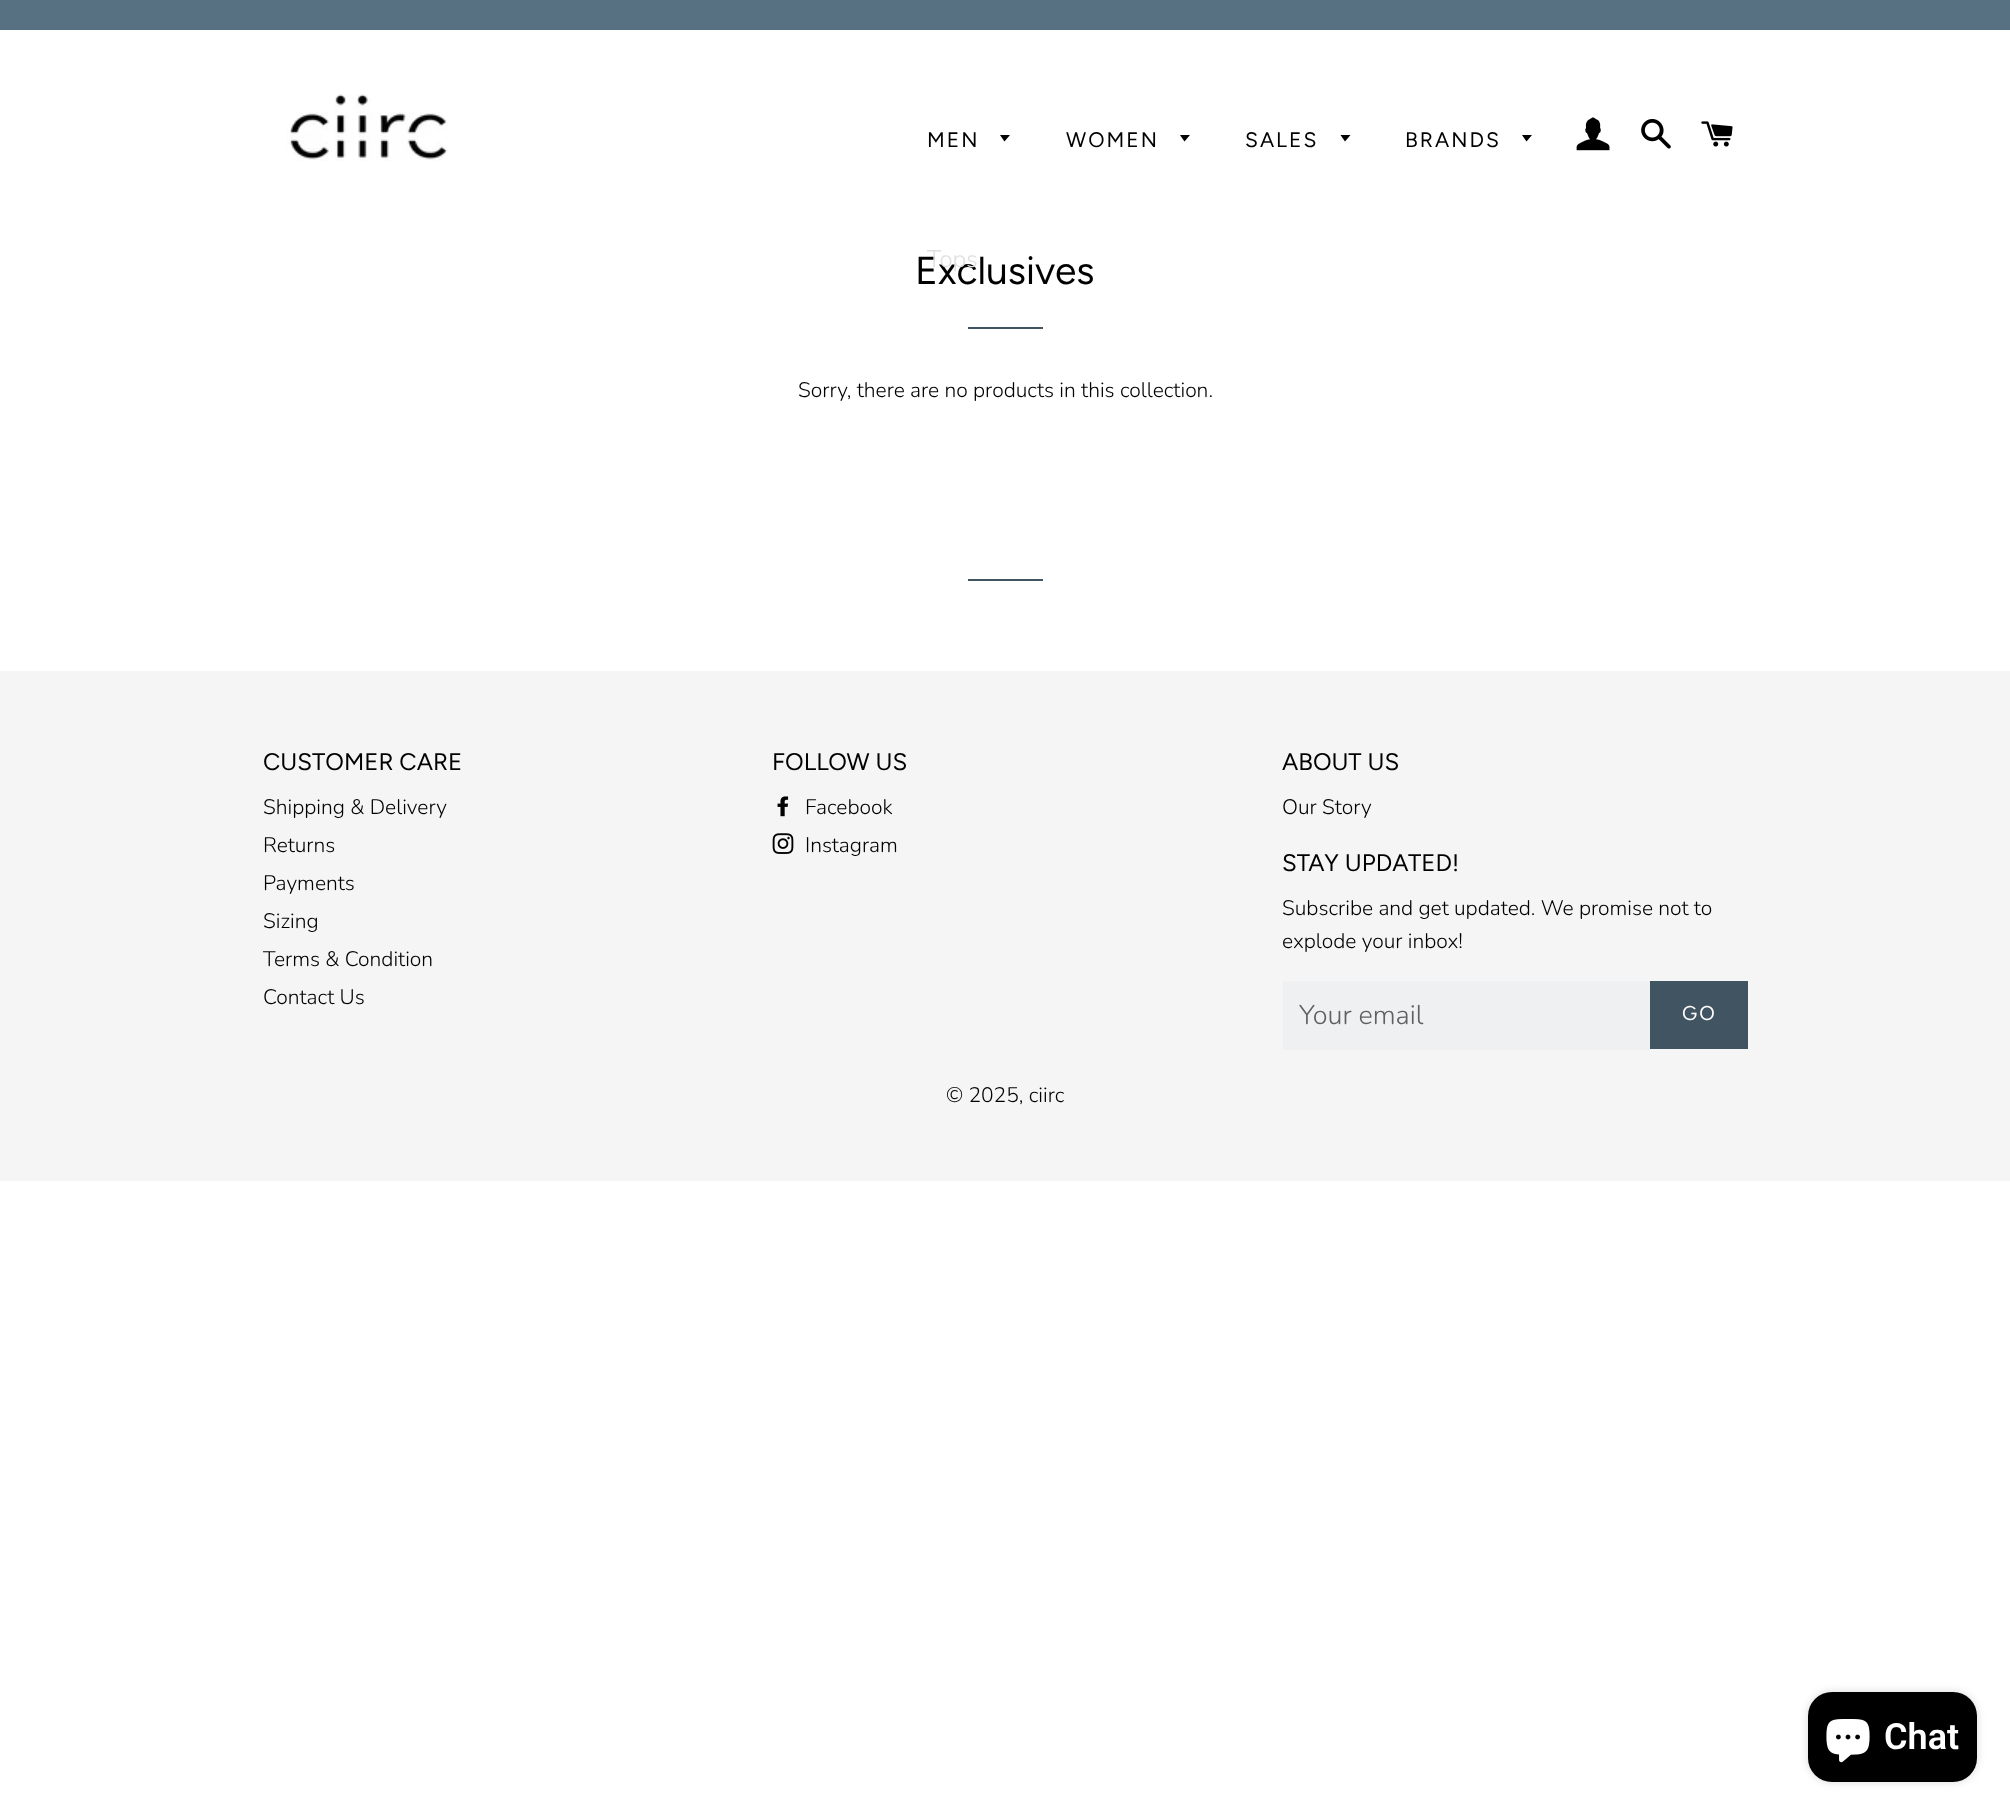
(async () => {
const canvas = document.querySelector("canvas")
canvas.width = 2010
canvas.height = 1813
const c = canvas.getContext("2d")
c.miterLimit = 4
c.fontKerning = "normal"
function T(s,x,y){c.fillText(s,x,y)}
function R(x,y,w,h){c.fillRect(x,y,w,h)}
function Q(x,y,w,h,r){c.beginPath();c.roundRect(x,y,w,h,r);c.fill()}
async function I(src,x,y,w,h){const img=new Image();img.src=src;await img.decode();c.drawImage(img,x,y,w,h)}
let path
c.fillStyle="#fff"
R(0,0,2010,1813)
c.fillStyle="#577183"
R(0,0,2010,30)
await I("1.png",287,94,161,67)
c.letterSpacing="2px"
c.font="21px Figtree"
c.fillStyle="#000"
T("MEN",927,147)
path = new Path2D("M1000 135l4.5 6.5l5.5-6.5z")
c.fill(path)
c.letterSpacing="0px"
c.font="39px Figtree"
T("Exclusives",915,284)
c.font="300 24px Nunito"
c.fillStyle="#e0e0e0"
T("Tops",927,267)
c.letterSpacing="2px"
c.font="21px Figtree"
c.fillStyle="#000"
T("WOMEN",1066,147)
path = new Path2D("M1180 135l4.5 6.5l5.5-6.5z")
c.fill(path)
T("SALES",1245,147)
path = new Path2D("M1340.5 135l4.5 6.5l5.5-6.5z")
c.fill(path)
T("BRANDS",1405,147)
path = new Path2D("M1522 135l4.5 6.5l5.5-6.5z")
c.fill(path)
await I("2.png",1576,117,34,34)
await I("3.png",1641,119,30,30)
await I("4.png",1701,121,32,26)
c.fillStyle="#415461"
R(968,327,75,2)
c.letterSpacing="0px"
c.font="300 21px Nunito"
c.fillStyle="#000"
T("Sorry, there are no products in this collection.",798,397)
c.fillStyle="#415461"
R(968,579,75,2)
c.fillStyle="#f5f5f5"
R(0,671,2010,510)
c.font="24px Figtree"
c.fillStyle="#000"
T("CUSTOMER CARE",263,770)
c.font="300 21px Nunito"
T("Shipping & Delivery",263,814)
T("Returns",263,852)
T("Payments",263,890)
T("Sizing",263,928)
T("Terms & Condition",263,966)
T("Contact Us",263,1004)
c.font="24px Figtree"
T("FOLLOW US",772,770)
await I("5.png",777,796,12,21)
c.font="300 21px Nunito"
T("Facebook",805,814)
await I("6.png",772,833,22,21)
T("Instagram",805,852)
c.font="24px Figtree"
T("ABOUT US",1282,770)
c.font="300 21px Nunito"
T("Our Story",1282,814)
c.font="24px Figtree"
T("STAY UPDATED!",1282,871)
c.font="300 21px Nunito"
T("Subscribe and get updated. We promise not to",1282,915)
T("explode your inbox!",1282,948)
c.fillStyle="#eff0f1"
R(1283,981,367,69)
c.font="300 27px Nunito"
c.fillStyle="#606060"
T("Your email",1299,1024)
c.fillStyle="#415461"
R(1650,981,98,68)
c.letterSpacing="2px"
c.font="20px Figtree"
c.fillStyle="#fff"
T("GO",1682,1020)
c.letterSpacing="0px"
c.font="300 21px Nunito"
c.fillStyle="#000"
T("© 2025, ciirc",946,1102)
c.fillStyle="#00000026"
c.filter="blur(4px)"
c.beginPath()
c.roundRect(1808,1692,169,90,24)
c.fill()
c.filter="none"
c.fillStyle="#000"
Q(1808,1692,169,90,24)
await I("7.png",1826,1719,44,44)
c.font="600 36px Roboto"
c.fillStyle="#fff"
T("Chat",1884,1749)
})()
